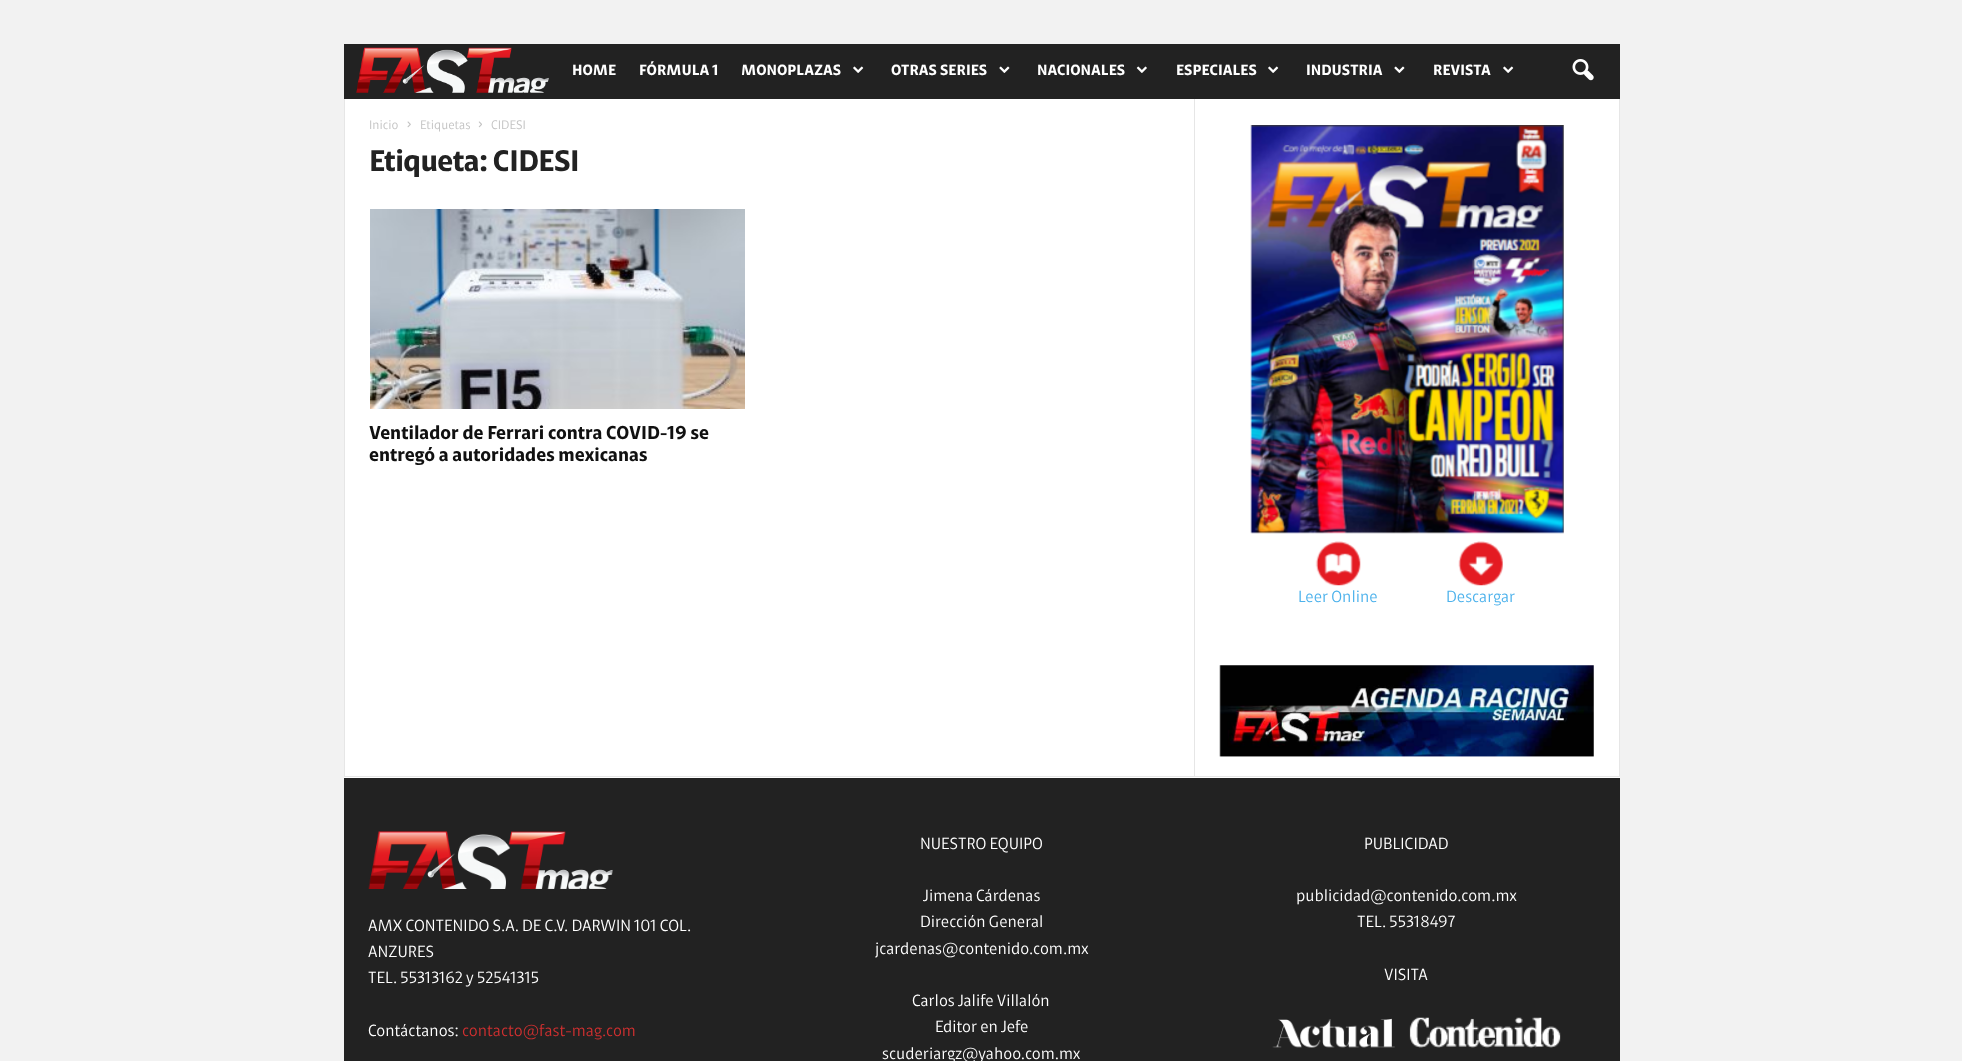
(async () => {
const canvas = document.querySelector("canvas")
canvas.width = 1962
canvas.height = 1061
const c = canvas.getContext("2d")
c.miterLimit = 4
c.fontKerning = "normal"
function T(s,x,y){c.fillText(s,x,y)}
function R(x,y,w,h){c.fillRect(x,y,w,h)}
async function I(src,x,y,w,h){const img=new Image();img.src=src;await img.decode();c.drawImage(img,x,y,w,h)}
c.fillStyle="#f2f2f2"
R(0,0,1962,1061)
c.fillStyle="#222"
R(344,44,1276,55)
await I("1.png",356,47,193,46)
c.font="bold 15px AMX"
c.fillStyle="#fff"
T("HOME",572,75)
T("FÓRMULA 1",639,75)
T("MONOPLAZAS",741,75)
await I("2.png",853,66,11,7)
T("OTRAS SERIES",891,75)
await I("3.png",999,66,11,7)
T("NACIONALES",1037,75)
await I("4.png",1136,66,11,7)
T("ESPECIALES",1176,75)
await I("2.png",1268,66,11,7)
T("INDUSTRIA",1306,75)
await I("3.png",1394,66,11,7)
T("REVISTA",1433,75)
await I("2.png",1503,66,11,7)
await I("5.png",1572,59,22,22)
R(344,99,1276,679)
c.fillStyle="#e6e6e6"
R(344,776,1276,1)
R(344,99,1,677)
c.font="12.5px AMX"
c.fillStyle="#c3c3c3"
T("Inicio",369,129)
await I("6.png",407,121,4,7)
T("Etiquetas",420,129)
await I("7.png",478,121,4,7)
T("CIDESI",491,129)
c.letterSpacing="-0.6px"
c.font="bold 30px AMX"
c.fillStyle="#222"
T("Etiqueta: CIDESI",369,171)
await I("8.png",370,209,375,200)
c.letterSpacing="0px"
c.font="bold 18.75px AMX"
c.fillStyle="#111"
T("Ventilador de Ferrari contra COVID-19 se",369,439)
T("entregó a autoridades mexicanas",369,461)
c.fillStyle="#e6e6e6"
R(1194,99,1,677)
await I("9.png",1250,125,314,409)
await I("10.png",1315,541,46,45)
c.font="16.25px AMX"
c.fillStyle="#4db2ec"
T("Leer Online",1298,602)
await I("11.png",1458,541,45,45)
T("Descargar",1446,602)
await I("12.png",1219,665,375,92)
c.fillStyle="#e6e6e6"
R(1619,99,1,677)
c.fillStyle="#222"
R(344,778,1276,283)
await I("13.png",368,831,245,58)
c.fillStyle="#fff"
T("AMX CONTENIDO S.A. DE C.V. DARWIN 101 COL.",368,931)
T("ANZURES",368,957)
T("TEL. 55313162 y 52541315",368,983)
T("Contáctanos:",368,1036)
c.fillStyle="#d13030"
T("contacto@fast-mag.com",462,1036)
c.fillStyle="#fff"
T("NUESTRO EQUIPO",920,849)
T("Jimena Cárdenas",923,901)
T("Dirección General",920,927)
T("jcardenas@contenido.com.mx",875,954)
T("Carlos Jalife Villalón",912,1006)
T("Editor en Jefe",935,1032)
T("scuderiargz@yahoo.com.mx",882,1059)
T("PUBLICIDAD",1364,849)
T("publicidad@contenido.com.mx",1296,901)
T("TEL. 55318497",1357,927)
T("VISITA",1384,980)
await I("14.png",1272,1018,123,30)
await I("15.png",1409,1017,152,31)
})()
